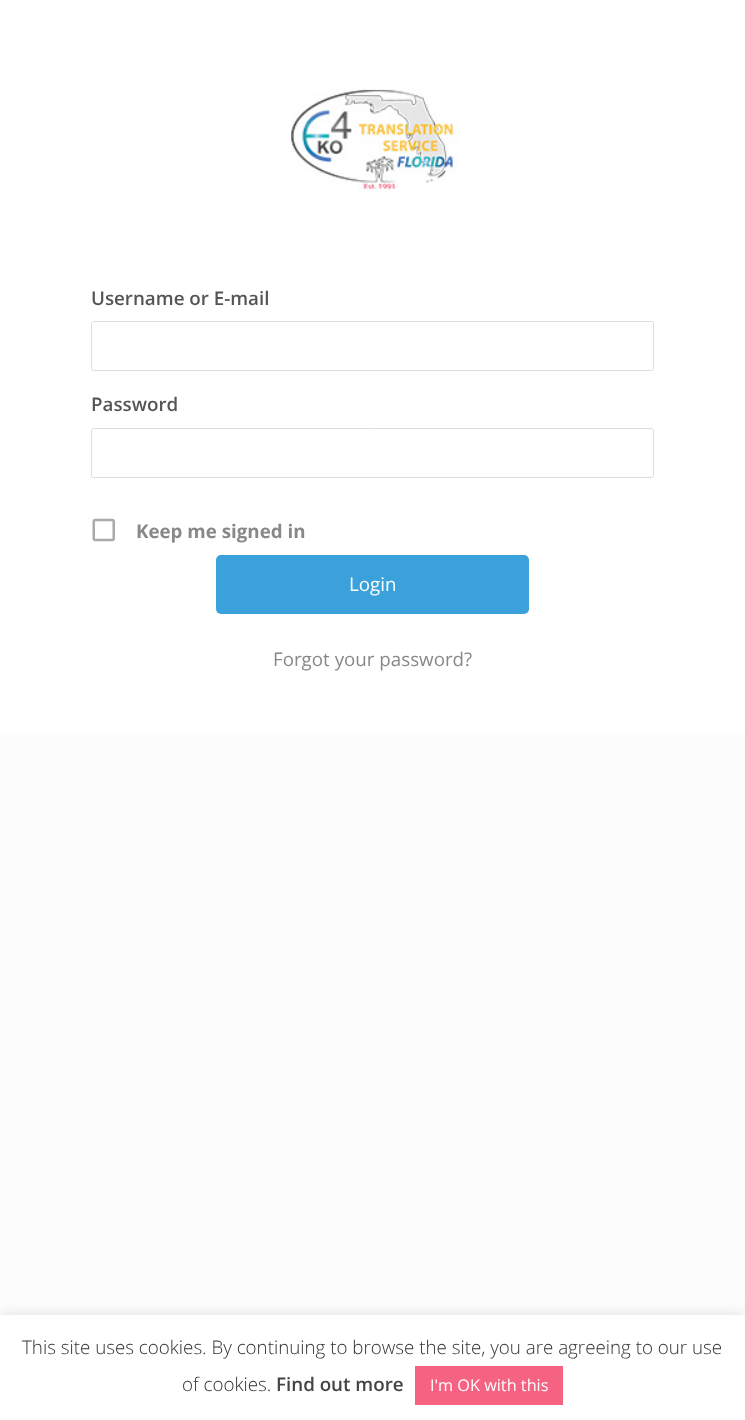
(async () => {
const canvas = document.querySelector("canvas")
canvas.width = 745
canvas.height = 1420
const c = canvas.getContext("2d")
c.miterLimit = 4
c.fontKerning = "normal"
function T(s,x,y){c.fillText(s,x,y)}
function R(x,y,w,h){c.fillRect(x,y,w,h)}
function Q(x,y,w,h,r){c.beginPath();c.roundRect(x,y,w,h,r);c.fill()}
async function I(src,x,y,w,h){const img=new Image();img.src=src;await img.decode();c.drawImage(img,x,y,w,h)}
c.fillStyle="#fcfcfc"
R(0,0,745,1420)
c.fillStyle="#fff"
R(0,0,745,735)
await I("1.png",291,89,168,104)
c.font="600 18.75px Open Sans"
c.fillStyle="#555"
T("Username or E-mail",91,305)
c.beginPath()
c.roundRect(91.5,321.5,562,49,2)
c.strokeStyle="#ddd"
c.stroke()
T("Password",91,411)
c.beginPath()
c.roundRect(91.5,428.5,562,49,2)
c.stroke()
await I("2.png",92,518,23,24)
c.font="bold 18.75px Open Sans"
c.fillStyle="#888"
T("Keep me signed in",136,538)
c.fillStyle="#3ba1da"
Q(216,555,313,59,5)
c.font="18.75px Open Sans"
c.fillStyle="#fff"
T("Login",349,591)
c.fillStyle="#888"
T("Forgot your password?",273,666)
c.fillStyle="#acabab4d"
c.filter="blur(6px)"
c.beginPath()
c.rect(0,1314,745,105)
c.fill()
c.filter="none"
c.fillStyle="#fff"
R(0,1315,745,105)
c.font="300 18.75px Open Sans"
c.fillStyle="#333"
T("This site uses cookies. By continuing to browse the site, you are agreeing to our use",22,1354)
T("of cookies.",182,1391)
c.font="600 18.75px Open Sans"
c.fillStyle="#444"
T("Find out more",276,1391)
c.fillStyle="#f66282"
R(415,1366,148,39)
c.font="16.25px Open Sans"
c.fillStyle="#fff"
T("I'm OK with this",430,1391)
})()
